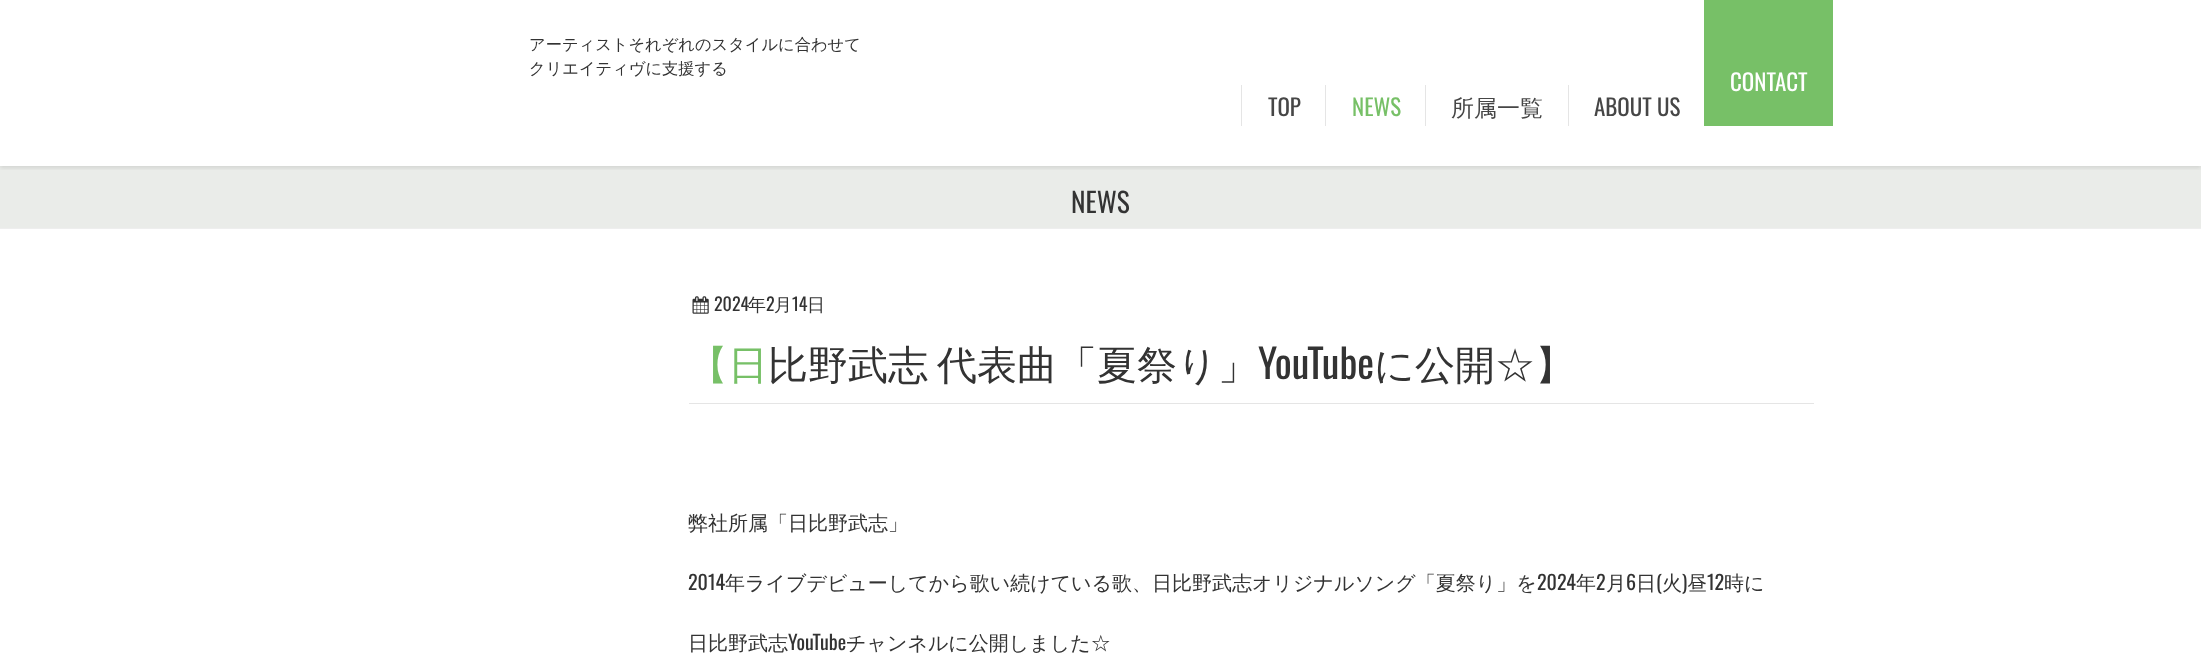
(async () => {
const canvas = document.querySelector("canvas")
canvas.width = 2201
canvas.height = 669
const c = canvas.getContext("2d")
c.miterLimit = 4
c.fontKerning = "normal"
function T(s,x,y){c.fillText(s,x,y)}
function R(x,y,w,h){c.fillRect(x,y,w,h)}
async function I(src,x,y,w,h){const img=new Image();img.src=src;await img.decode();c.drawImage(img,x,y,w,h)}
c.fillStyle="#fff"
R(0,0,2201,669)
c.fillStyle="#eaece9"
R(0,166,2201,62)
c.save()
c.beginPath()
c.rect(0,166,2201,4)
c.clip()
c.fillStyle="#0000001a"
c.filter="blur(2px)"
c.beginPath()
c.rect(0,1,2201,167)
c.fill()
c.filter="none"
c.restore()
c.font="500 16.25px WenQuanYi Zen Hei"
c.fillStyle="#333"
T("アーティストそれぞれのスタイルに合わせて",529,50)
T("クリエイティヴに支援する",529,74)
c.fillStyle="#77c067"
R(1704,0,129,126)
c.font="23px Oswald"
c.fillStyle="#fff"
T("CONTACT",1730,91)
c.fillStyle="#e5e5e5"
R(1241,85,1,41)
c.fillStyle="#464646"
T("TOP",1268,116)
c.fillStyle="#e5e5e5"
R(1325,85,1,41)
c.fillStyle="#77c067"
T("NEWS",1352,116)
c.fillStyle="#e5e5e5"
R(1425,85,1,41)
c.font="500 23px WenQuanYi Zen Hei"
c.fillStyle="#464646"
T("所属一覧",1451,116)
c.fillStyle="#e5e5e5"
R(1568,85,1,41)
c.font="23px Oswald"
c.fillStyle="#464646"
T("ABOUT US",1594,116)
c.fillStyle="#eee"
R(0,228,2201,1)
c.font="27.5px Oswald"
c.fillStyle="#333"
T("NEWS",1071,213)
c.fillStyle="#e5e5e5"
R(689,403,1125,1)
await I("1.png",692,296,17,18)
c.font="18px Oswald"
c.fillStyle="#333"
T("2024",714,311)
c.font="500 18px WenQuanYi Zen Hei"
T("年",748,311)
c.font="18px Oswald"
T("2",766,311)
c.font="500 18px WenQuanYi Zen Hei"
T("月",774,311)
c.font="18px Oswald"
T("14",792,311)
c.font="500 18px WenQuanYi Zen Hei"
T("日",807,311)
c.font="500 40px Noto Sans"
c.fillStyle="#77c067"
T("【日",688,379)
c.wordSpacing="-3px"
c.font="500 40px WenQuanYi Zen Hei"
c.fillStyle="#333"
T("比野武志 代表曲「夏祭り」",768,379)
c.wordSpacing="0px"
c.font="40px Oswald"
T("YouTube",1258,379)
c.font="500 40px WenQuanYi Zen Hei"
T("に公開☆】",1374,379)
c.font="500 20px WenQuanYi Zen Hei"
T("弊社所属「日比野武志」",688,530)
c.font="20px Oswald"
T("2014",688,590)
c.font="500 20px WenQuanYi Zen Hei"
T("年ライブデビューしてから歌い続けている歌、日比野武志オリジナルソング「夏祭り」を",725,590)
c.font="20px Oswald"
T("2024",1537,590)
c.font="500 20px WenQuanYi Zen Hei"
T("年",1576,590)
c.font="20px Oswald"
T("2",1596,590)
T("6",1626,590)
c.font="500 20px WenQuanYi Zen Hei"
T("日 火",1636,590)
T("月",1606,590)
c.font="20px Oswald"
T("(",1656,590)
T(")",1682,590)
c.font="500 20px WenQuanYi Zen Hei"
T("昼",1687,590)
c.font="20px Oswald"
T("12",1707,590)
c.font="500 20px WenQuanYi Zen Hei"
T("時に",1724,590)
T("日比野武志",688,650)
c.font="20px Oswald"
T("YouTube",788,650)
c.font="500 20px WenQuanYi Zen Hei"
T("チャンネルに公開しました☆",846,650)
})()
